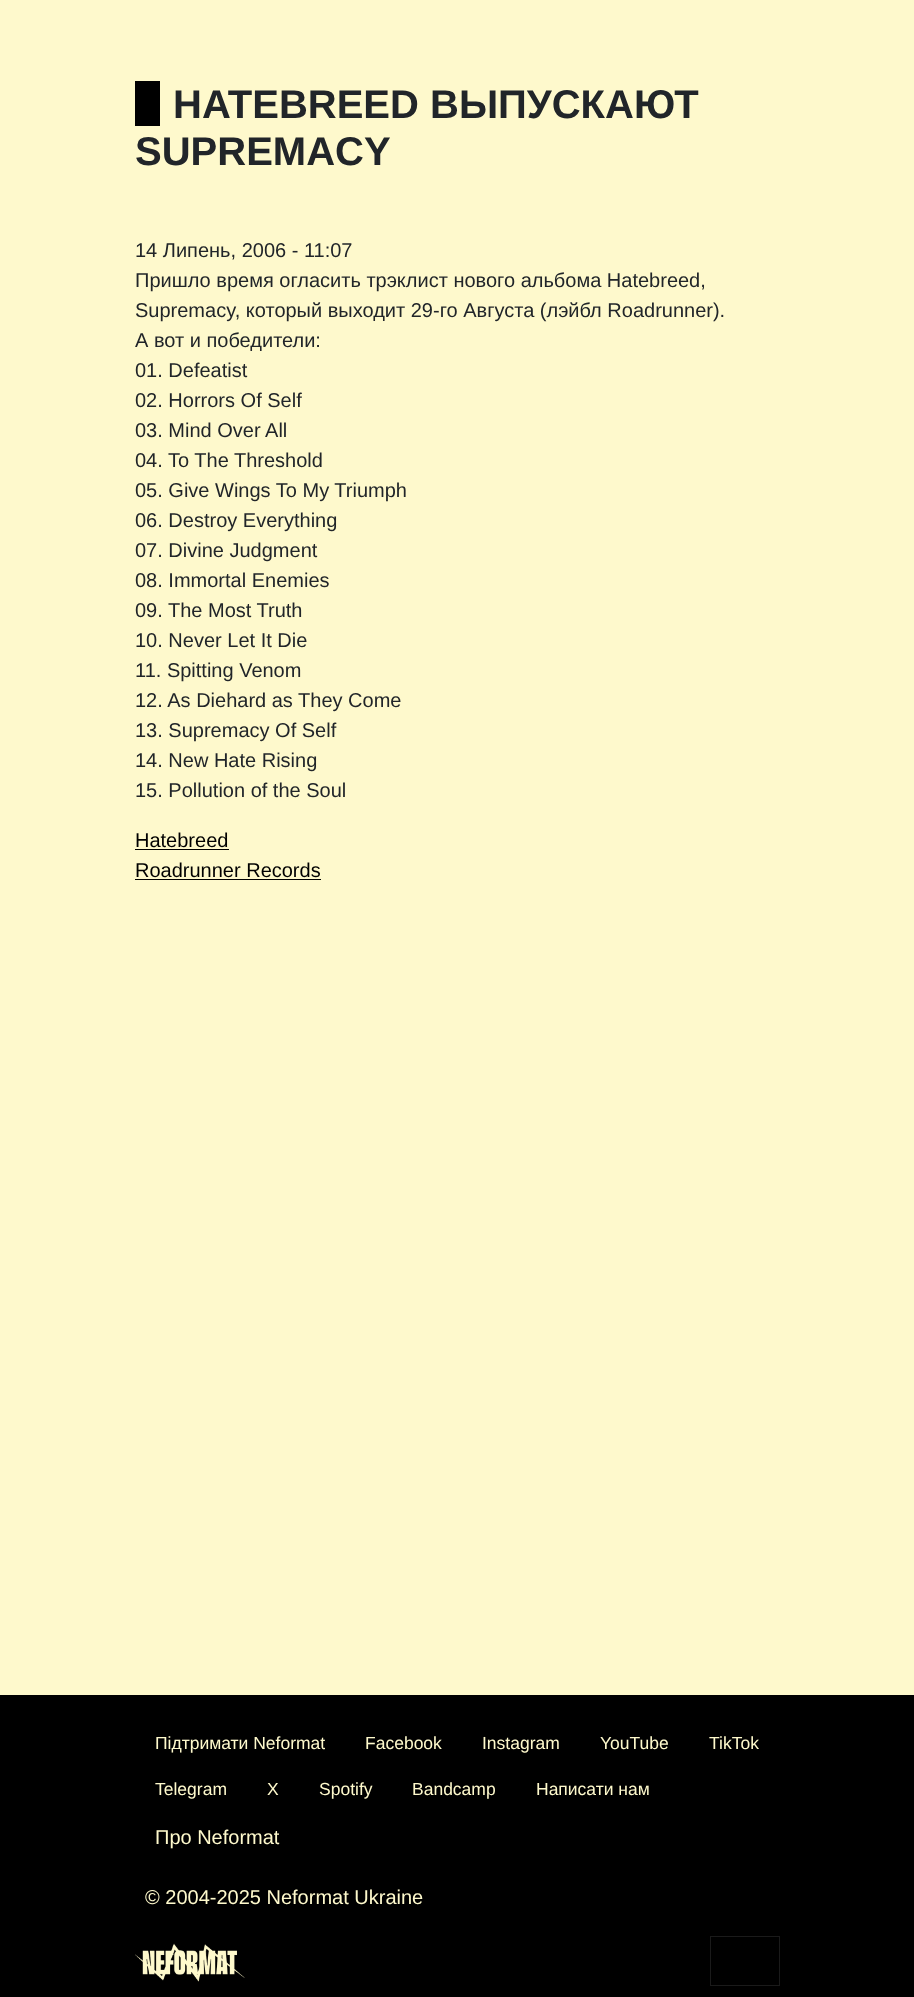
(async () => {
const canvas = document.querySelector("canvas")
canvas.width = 914
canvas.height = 1997
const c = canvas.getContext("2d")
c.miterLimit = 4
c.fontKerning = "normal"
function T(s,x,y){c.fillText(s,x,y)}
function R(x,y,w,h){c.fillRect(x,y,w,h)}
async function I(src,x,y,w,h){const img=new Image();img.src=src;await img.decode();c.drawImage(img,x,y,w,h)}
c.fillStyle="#fef9cc"
R(0,0,914,1997)
c.fillStyle="#000"
R(135,81,25,45)
c.font="bold 40px Liberation Sans"
c.fillStyle="#212529"
T("HATEBREED ВЫПУСКАЮТ",173,118)
T("SUPREMACY",135,165)
c.font="20px Liberation Sans"
T("14 Липень, 2006 - 11:07",135,257)
T("Пришло время огласить трэклист нового альбома Hatebreed,",135,287)
T("Supremacy, который выходит 29-го Августа (лэйбл Roadrunner).",135,317)
T("А вот и победители:",135,347)
T("01. Defeatist",135,377)
T("02. Horrors Of Self",135,407)
T("03. Mind Over All",135,437)
T("04. To The Threshold",135,467)
T("05. Give Wings To My Triumph",135,497)
T("06. Destroy Everything",135,527)
T("07. Divine Judgment",135,557)
T("08. Immortal Enemies",135,587)
T("09. The Most Truth",135,617)
T("10. Never Let It Die",135,647)
T("11. Spitting Venom",135,677)
T("12. As Diehard as They Come",135,707)
T("13. Supremacy Of Self",135,737)
T("14. New Hate Rising",135,767)
T("15. Pollution of the Soul",135,797)
c.fillStyle="#000"
T("Hatebreed",135,847)
R(135,849,94,1)
T("Roadrunner Records",135,877)
R(135,879,186,1)
R(0,1695,914,302)
c.font="17.5px Liberation Sans"
c.fillStyle="#fef9cc"
T("Підтримати Neformat",155,1749)
T("Facebook",365,1749)
T("Instagram",482,1749)
T("YouTube",600,1749)
T("TikTok",709,1749)
T("Telegram",155,1795)
T("X",267,1795)
T("Spotify",319,1795)
T("Bandcamp",412,1795)
T("Написати нам",536,1795)
c.font="20px Liberation Sans"
T("Про Neformat",155,1844)
T("© 2004-2025 Neformat Ukraine",145,1904)
await I("1.png",135,1943,110,39)
c.strokeStyle="#1a1a1a"
c.strokeRect(710.5,1936.5,69,49)
})()
